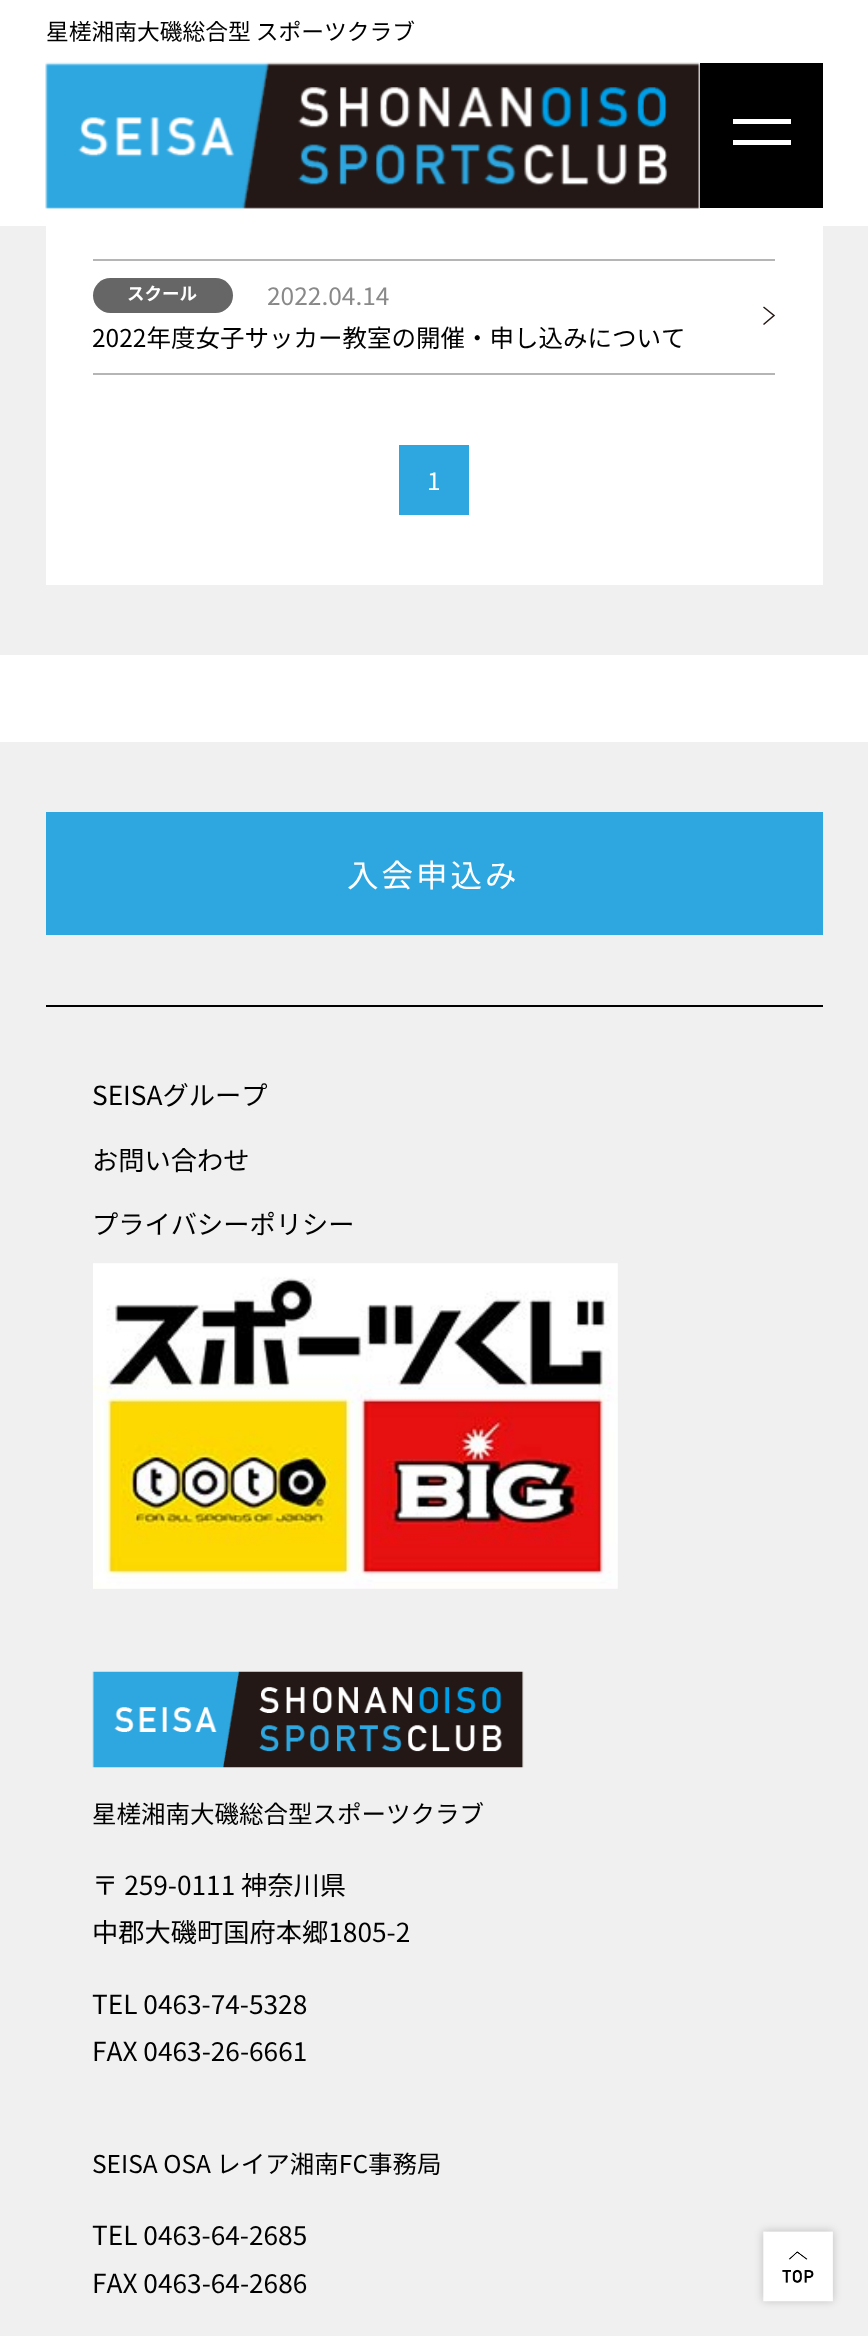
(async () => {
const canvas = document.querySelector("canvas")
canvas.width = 868
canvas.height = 2336
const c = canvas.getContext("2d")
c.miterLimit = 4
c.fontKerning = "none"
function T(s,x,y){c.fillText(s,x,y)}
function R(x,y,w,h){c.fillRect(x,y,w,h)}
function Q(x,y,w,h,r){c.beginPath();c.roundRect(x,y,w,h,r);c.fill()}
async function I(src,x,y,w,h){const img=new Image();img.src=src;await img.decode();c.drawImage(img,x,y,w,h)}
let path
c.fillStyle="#fff"
R(0,0,868,2336)
c.font="22.75px Noto Sans JP"
c.fillStyle="#000"
T("星槎湘南大磯総合型 スポーツクラブ",46,40)
await I("1.png",45,62,655,147)
R(700,63,123,145)
c.fillStyle="#fff"
R(733,119,58,5)
R(733,140,58,5)
c.fillStyle="#f0f0f0"
R(0,226,868,429)
c.fillStyle="#fff"
R(46,226,777,359)
c.fillStyle="#b5b5b6"
R(93,259,682,2)
R(93,373,682,2)
c.fillStyle="#666"
Q(93,278,140,35,17.5)
c.font="bold 17.5px Noto Sans JP"
c.fillStyle="#fff"
T("スクール",127,300)
c.font="24.5px Noto Sans JP"
c.fillStyle="#898989"
T("2022.04.14",267,305)
path = new Path2D("M763.5 307l10.5 8.5l-10.5 9")
c.strokeStyle="#231815"
c.lineWidth=1.5
c.stroke(path)
c.fillStyle="#000"
T("2022年度女子サッカー教室の開催・申し込みについて",92,347)
c.fillStyle="#2ea7e0"
R(399,445,70,70)
c.fillStyle="#fff"
T("1",427,490)
c.fillStyle="#f0f0f0"
R(0,742,868,1594)
c.fillStyle="#2ea7e0"
R(46,812,777,123)
c.letterSpacing="3px"
c.font="31.5px Noto Sans JP"
c.fillStyle="#fff"
T("入会申込み",347,887)
c.fillStyle="#000"
R(46,1005,777,2)
c.letterSpacing="0px"
c.font="26.25px Noto Sans JP"
T("SEISAグループ",92,1105)
T("お問い合わせ",92,1170)
T("プライバシーポリシー",92,1234)
await I("2.png",93,1263,525,326)
await I("3.png",92,1671,432,97)
c.font="24.5px Noto Sans JP"
T("星槎湘南大磯総合型スポーツクラブ",92,1823)
c.font="26.25px Noto Sans JP"
T("〒 259-0111 神奈川県",92,1895)
T("中郡大磯町国府本郷1805-2",92,1942)
T("TEL 0463-74-5328",92,2014)
T("FAX 0463-26-6661",92,2061)
c.font="24.5px Noto Sans JP"
T("SEISA OSA レイア湘南FC事務局",92,2173)
c.font="26.25px Noto Sans JP"
T("TEL 0463-64-2685",92,2245)
T("FAX 0463-64-2686",92,2293)
c.fillStyle="#00000033"
c.filter="blur(4.5px)"
c.beginPath()
c.rect(763,2231,70,70)
c.fill()
c.filter="none"
await I("4.png",763,2231,70,71)
})()
